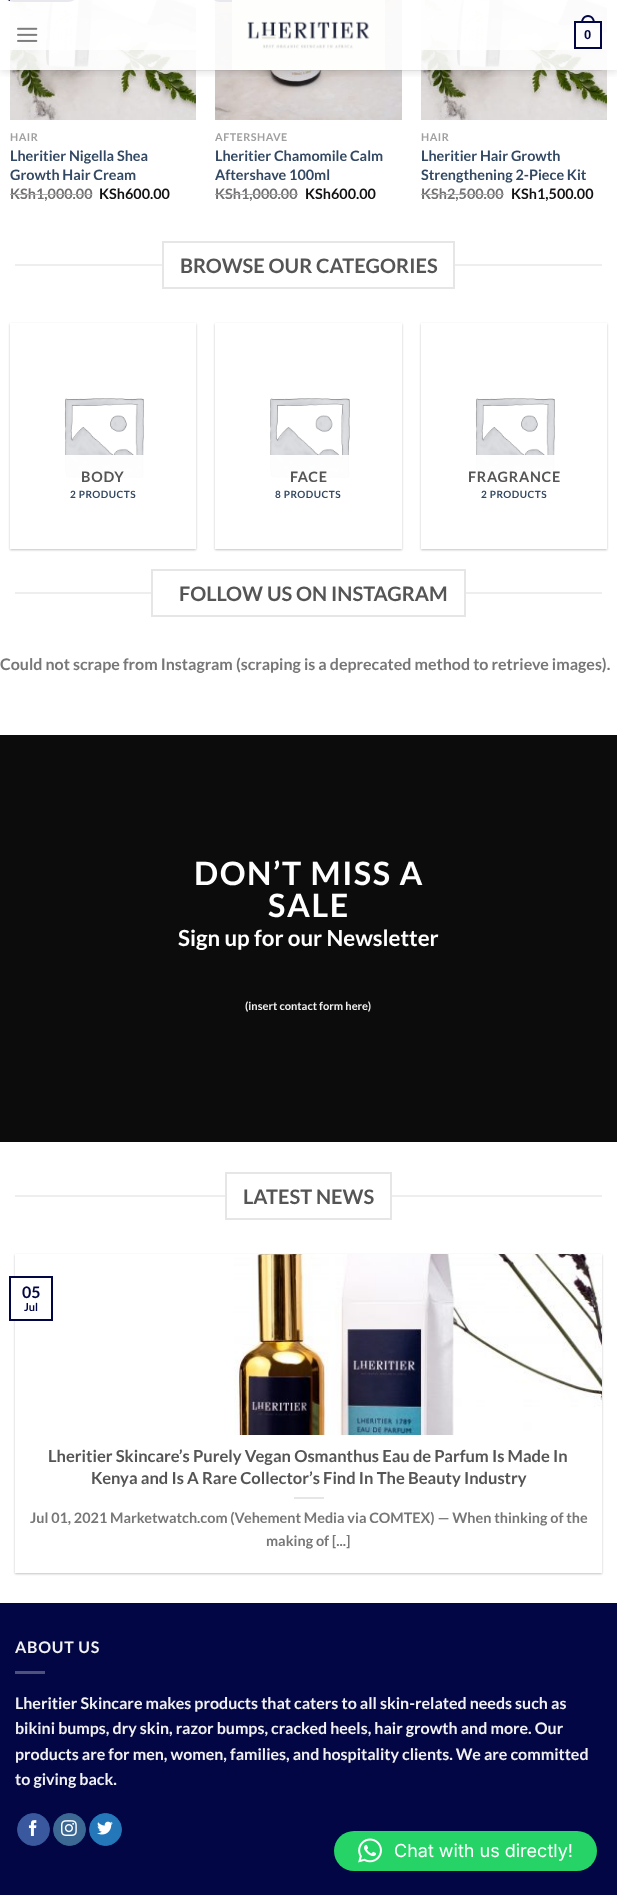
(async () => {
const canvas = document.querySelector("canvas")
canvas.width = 617
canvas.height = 1895
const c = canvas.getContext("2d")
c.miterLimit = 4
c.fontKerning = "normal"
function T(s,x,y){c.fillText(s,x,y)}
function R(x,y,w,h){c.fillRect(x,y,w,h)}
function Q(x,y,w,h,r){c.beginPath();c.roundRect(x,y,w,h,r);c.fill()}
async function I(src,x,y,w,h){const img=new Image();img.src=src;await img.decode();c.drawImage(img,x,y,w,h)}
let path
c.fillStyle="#fff"
R(0,0,617,1895)
await I("3.png",10,0,186,120)
c.fillStyle="#ffffffcf"
R(10,0,186,50)
c.fillStyle="#020644e6"
Q(3,-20,76,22,20)
await I("4.png",215,0,187,120)
Q(209,-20,57,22,20)
await I("5.png",421,0,186,120)
c.fillStyle="#ffffffcf"
R(421,0,186,50)
c.save()
c.beginPath()
c.rect(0,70,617,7)
c.clip()
c.fillStyle="#00000026"
c.filter="blur(5px)"
c.beginPath()
c.rect(1,1,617,70)
c.fill()
c.filter="none"
c.restore()
c.fillStyle="#ffffffe6"
R(10,0,597,70)
await I("1.png",17,27,21,15)
await I("2.png",232,0,153,70)
c.strokeStyle="#020644"
c.lineWidth=2
c.strokeRect(575,22,26,26)
c.fillStyle="#020644"
path = new Path2D("M588 15c4.5 0 7 4 7 8h-14c0-4 2.5-8 7-8zm0 2c3.5 0 5 3 5 6h-10c0-3 1.5-6 5-6z")
c.fill(path,"evenodd")
c.font="bold 13px Liberation Sans"
T("0",584,39)
c.fillStyle="#7777771a"
R(15,70,587,1)
c.letterSpacing="0.5px"
c.font="bold 10.75px Lato"
c.fillStyle="#a0a0a0"
T("HAIR",10,141)
c.letterSpacing="0px"
c.font="bold 14.4px Lato"
c.fillStyle="#334862"
T("Lheritier Nigella Shea",10,161)
T("Growth Hair Cream",10,180)
c.fillStyle="#707070"
T("KSh1,000.00",10,199)
c.fillStyle="#adadad"
R(10,194,82,1)
c.fillStyle="#111"
T("KSh600.00",99,199)
c.letterSpacing="0.5px"
c.font="bold 10.75px Lato"
c.fillStyle="#a0a0a0"
T("AFTERSHAVE",215,141)
c.letterSpacing="0px"
c.font="bold 14.4px Lato"
c.fillStyle="#334862"
T("Lheritier Chamomile Calm",215,161)
T("Aftershave 100ml",215,180)
c.fillStyle="#707070"
T("KSh1,000.00",215,199)
c.fillStyle="#adadad"
R(215,194,83,1)
c.fillStyle="#111"
T("KSh600.00",305,199)
c.letterSpacing="0.5px"
c.font="bold 10.75px Lato"
c.fillStyle="#a0a0a0"
T("HAIR",421,141)
c.letterSpacing="0px"
c.font="bold 14.4px Lato"
c.fillStyle="#334862"
T("Lheritier Hair Growth",421,161)
T("Strengthening 2-Piece Kit",421,180)
c.fillStyle="#707070"
T("KSh2,500.00",421,199)
c.fillStyle="#adadad"
R(421,194,83,1)
c.fillStyle="#111"
T("KSh1,500.00",511,199)
c.fillStyle="#eee"
R(15,264,147,2)
c.strokeStyle="#e6e6e6"
c.strokeRect(163,242,291,46)
c.font="bold 20px Lato"
c.fillStyle="#555"
T("BROWSE OUR CATEGORIES",180,273)
c.fillStyle="#eee"
R(455,264,147,2)
c.save()
path = new Path2D("M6 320h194v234h-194zm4 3h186v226h-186z")
c.clip(path,"evenodd")
c.fillStyle="#0000003d"
c.filter="blur(1px)"
c.beginPath()
c.rect(10,324,186,226)
c.fill()
c.filter="none"
c.restore()
await I("6.png",64,398,80,81)
c.fillStyle="#fffffff2"
R(64,455,80,24)
c.letterSpacing="0.75px"
c.font="bold 14.4px Lato"
c.fillStyle="#555"
T("BODY",81,482)
c.letterSpacing="0.5px"
c.font="bold 10px Lato"
c.fillStyle="#334862"
T("2 PRODUCTS",70,498)
c.save()
path = new Path2D("M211 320h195v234h-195zm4 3h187v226h-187z")
c.clip(path,"evenodd")
c.fillStyle="#0000003d"
c.filter="blur(1px)"
c.beginPath()
c.rect(215,324,187,226)
c.fill()
c.filter="none"
c.restore()
await I("7.png",270,398,80,81)
c.fillStyle="#fffffff2"
R(270,455,80,24)
c.letterSpacing="0.75px"
c.font="bold 14.4px Lato"
c.fillStyle="#555"
T("FACE",290,482)
c.letterSpacing="0.5px"
c.font="bold 10px Lato"
c.fillStyle="#334862"
T("8 PRODUCTS",275,498)
c.save()
path = new Path2D("M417 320h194v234h-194zm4 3h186v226h-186z")
c.clip(path,"evenodd")
c.fillStyle="#0000003d"
c.filter="blur(1px)"
c.beginPath()
c.rect(421,324,186,226)
c.fill()
c.filter="none"
c.restore()
await I("6.png",475,398,80,81)
c.fillStyle="#fffffff2"
R(475,455,80,24)
c.letterSpacing="0.75px"
c.font="bold 14.4px Lato"
c.fillStyle="#555"
T("FRAGRANCE",468,482)
c.letterSpacing="0.5px"
c.font="bold 10px Lato"
c.fillStyle="#334862"
T("2 PRODUCTS",481,498)
c.fillStyle="#eee"
R(15,592,136,2)
c.strokeRect(152,570,313,46)
c.letterSpacing="0px"
c.font="bold 20px Lato"
c.fillStyle="#555"
T("FOLLOW US ON INSTAGRAM",179,601)
c.fillStyle="#eee"
R(466,592,136,2)
c.font="bold 16px Lato"
c.fillStyle="#777"
T("Could not scrape from Instagram (scraping is a deprecated method to retrieve images).",0,670)
c.fillStyle="#0c0c0c"
R(0,735,617,407)
c.letterSpacing="1.6px"
c.font="bold 32.25px Lato"
c.fillStyle="#fff"
T("DON’T MISS A",194,885)
T("SALE",268,917)
c.letterSpacing="0px"
c.font="bold 22.25px Lato"
T("Sign up for our Newsletter",178,946)
c.font="bold 11.1px Lato"
c.fillStyle="#f1f1f1"
T("(insert contact form here)",245,1010)
c.fillStyle="#eee"
R(15,1195,210,2)
c.strokeRect(226,1173,165,46)
c.font="bold 20px Lato"
c.fillStyle="#555"
T("LATEST NEWS",243,1204)
c.fillStyle="#eee"
R(392,1195,210,2)
c.save()
path = new Path2D("M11 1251h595v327h-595zm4 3h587v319h-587z")
c.clip(path,"evenodd")
c.fillStyle="#0000003d"
c.filter="blur(1px)"
c.beginPath()
c.rect(15,1255,587,319)
c.fill()
c.filter="none"
c.restore()
c.fillStyle="#fff"
R(13,1278,2,41)
c.strokeStyle="#020644"
c.strokeRect(10,1277,42,43)
c.font="bold 16px Lato"
c.fillStyle="#020644"
T("05",22,1298)
c.font="bold 11px Lato"
T("Jul",24,1311)
await I("8.png",234,1254,368,181)
c.font="bold 16.55px Lato"
c.fillStyle="#555"
T("Lheritier Skincare’s Purely Vegan Osmanthus Eau de Parfum Is Made In",48,1462)
T("Kenya and Is A Rare Collector’s Find In The Beauty Industry",91,1484)
c.fillStyle="#e6e6e6"
R(294,1497,30,2)
c.font="bold 14.4px Lato"
c.fillStyle="#777"
T("Jul 01, 2021 Marketwatch.com (Vehement Media via COMTEX) — When thinking of the",30,1523)
T("making of [...]",266,1546)
c.fillStyle="#020644"
R(0,1604,617,291)
c.fillStyle="#020641"
R(0,1603,617,1)
c.letterSpacing="0.75px"
c.font="bold 16px Lato"
c.fillStyle="#f1f1f1"
T("ABOUT US",15,1653)
c.fillStyle="#4e517c"
R(15,1671,30,3)
c.letterSpacing="0px"
c.fillStyle="#f1f1f1"
T("Lheritier Skincare makes products that caters to all skin-related needs such as",15,1709)
T("bikini bumps, dry skin, razor bumps, cracked heels, hair growth and more. Our",15,1734)
T("products are for men, women, families, and hospitality clients. We are committed",15,1760)
T("to giving back.",15,1785)
c.fillStyle="#3a589d"
c.beginPath()
c.arc(33.5,1829.5,16,0,7)
c.fill()
c.strokeStyle="#3a589d"
c.lineWidth=1
c.stroke()
await I("9.png",28,1820,9,16)
c.fillStyle="#3b6994"
c.beginPath()
c.arc(69.5,1829.5,16,0,7)
c.fill()
c.strokeStyle="#3b6994"
c.stroke()
await I("10.png",61,1820,16,16)
c.fillStyle="#2478ba"
c.beginPath()
c.arc(105.5,1829.5,16,0,7)
c.fill()
c.strokeStyle="#2478ba"
c.stroke()
await I("11.png",97,1821,16,14)
c.fillStyle="#25d366"
Q(334,1831,263,40,20)
await I("12.png",358,1838,24,25)
c.font="18px Inter"
c.fillStyle="#fff"
T("Chat with us directly!",394,1857)
})()
